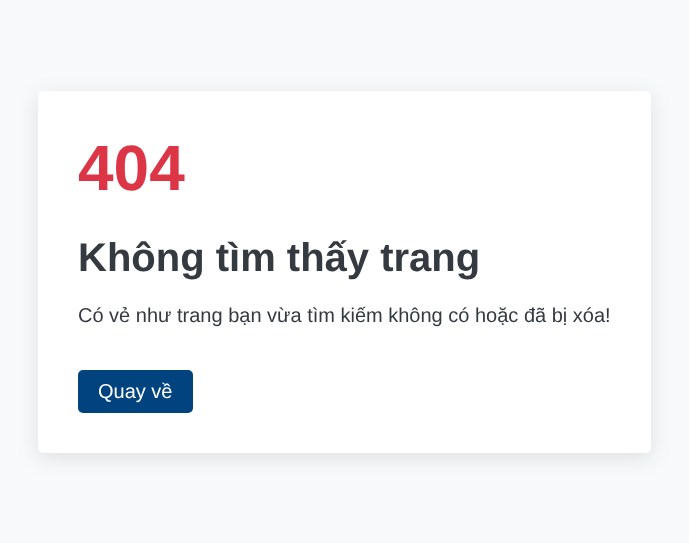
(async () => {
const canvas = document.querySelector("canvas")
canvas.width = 689
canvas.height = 543
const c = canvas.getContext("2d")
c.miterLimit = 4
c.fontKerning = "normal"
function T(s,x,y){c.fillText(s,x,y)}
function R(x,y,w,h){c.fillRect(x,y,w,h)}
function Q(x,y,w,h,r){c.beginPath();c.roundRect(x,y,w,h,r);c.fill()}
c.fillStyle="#f8f9fa"
R(0,0,689,543)
c.fillStyle="#0000001a"
c.filter="blur(10px)"
c.beginPath()
c.roundRect(38,96,613,362,5)
c.fill()
c.filter="none"
c.fillStyle="#fff"
Q(38,91,613,362,5)
c.font="bold 64px Liberation Sans"
c.fillStyle="#dc3545"
T("404",78,190)
c.font="bold 40px Liberation Sans"
c.fillStyle="#343a40"
T("Không tìm thấy trang",78,271)
c.font="20px Liberation Sans"
T("Có vẻ như trang bạn vừa tìm kiếm không có hoặc đã bị xóa!",78,322)
c.fillStyle="#00437f"
Q(78,370,115,43,5)
c.fillStyle="#fff"
T("Quay về",98,398)
})()
